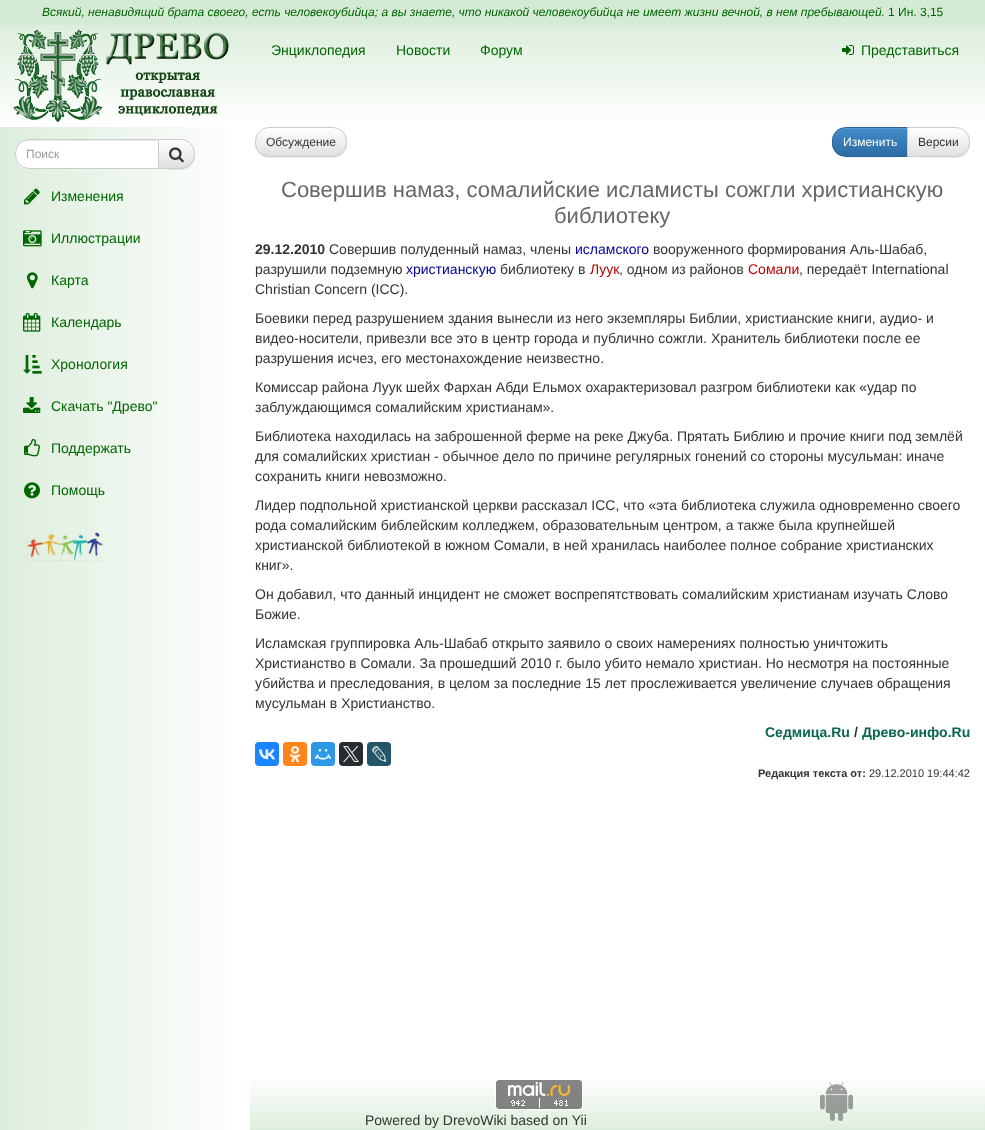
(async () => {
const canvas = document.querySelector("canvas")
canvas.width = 985
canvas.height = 1130
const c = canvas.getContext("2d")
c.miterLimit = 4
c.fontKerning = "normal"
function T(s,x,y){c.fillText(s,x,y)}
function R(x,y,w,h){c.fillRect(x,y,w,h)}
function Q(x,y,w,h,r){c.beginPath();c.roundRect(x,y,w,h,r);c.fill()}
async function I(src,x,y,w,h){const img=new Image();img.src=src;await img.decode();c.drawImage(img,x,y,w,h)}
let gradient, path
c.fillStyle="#fff"
R(0,0,985,1130)
c.fillStyle="#d5ead5"
R(0,0,985,25)
c.font="italic 12px Liberation Sans"
c.fillStyle="#060"
T("Всякий, ненавидящий брата своего, есть человекоубийца; а вы знаете, что никакой человекоубийца не имеет жизни вечной, в нем пребывающей.",42,16)
c.font="12px Liberation Sans"
T("1 Ин. 3,15",888,16)
gradient = c.createLinearGradient(493,25,493,127)
gradient.addColorStop(0,"#ded")
gradient.addColorStop(1,"#fff")
c.fillStyle = gradient
R(0,25,985,95)
await I("1.png",13,28,216,95)
c.font="14px Liberation Sans"
c.fillStyle="#060"
T("Энциклопедия",271,55)
T("Новости",396,55)
T("Форум",480,55)
await I("2.png",842,45,12,10)
T("Представиться",861,55)
gradient = c.createLinearGradient(0,565,250,565)
gradient.addColorStop(0,"#ded")
gradient.addColorStop(1,"#fff")
c.fillStyle = gradient
R(0,127,232,1003)
c.fillStyle="#00000012"
c.filter="blur(0.5px)"
c.beginPath()
c.roundRect(158,140,37,30,14)
c.fill()
c.filter="none"
c.save()
c.beginPath()
c.roundRect(158,139,37,30,[0,14,14,0])
c.clip()
gradient = c.createLinearGradient(177,140,177,168)
gradient.addColorStop(0,"#fff")
gradient.addColorStop(1,"#e0e0e0")
c.fillStyle = gradient
R(159,140,36,28)
c.restore()
c.beginPath()
c.roundRect(158.5,139.5,36,29,[0,13.5,13.5,0])
c.strokeStyle="#ccc"
c.stroke()
c.fillStyle="#fff"
c.beginPath()
c.roundRect(15,139,144,30,[14,0,0,14])
c.fill()
c.fillStyle="#ececec"
path = new Path2D("M29 141h129v-1h-129c-7 0-13 6-13 13c1-6 5-12 13-12z")
c.fill(path)
c.beginPath()
c.roundRect(15.5,139.5,143,29,[13.5,0,0,13.5])
c.stroke()
c.font="12px Liberation Sans"
c.fillStyle="#999"
T("Поиск",26,158)
await I("3.png",169,147,15,16)
await I("4.png",24,188,16,17)
c.font="14px Liberation Sans"
c.fillStyle="#060"
T("Изменения",51,201)
await I("5.png",23,230,19,17)
T("Иллюстрации",51,243)
await I("6.png",27,272,11,17)
T("Карта",51,285)
await I("7.png",23,313,18,19)
T("Календарь",51,327)
await I("8.png",23,355,19,19)
T("Хронология",51,369)
await I("9.png",23,397,18,16)
T("Скачать \"Древо\"",51,411)
await I("10.png",24,439,16,18)
T("Поддержать",51,453)
await I("11.png",24,482,16,17)
T("Помощь",51,495)
await I("12.png",25,530,81,31)
c.fillStyle="#00000012"
c.filter="blur(0.5px)"
c.beginPath()
c.roundRect(255,128,92,30,14)
c.fill()
c.filter="none"
c.save()
c.beginPath()
c.roundRect(255,127,92,30,14)
c.clip()
gradient = c.createLinearGradient(301,128,301,156)
gradient.addColorStop(0,"#fff")
gradient.addColorStop(1,"#e0e0e0")
c.fillStyle = gradient
R(255,128,92,28)
c.restore()
c.beginPath()
c.roundRect(255.5,127.5,91,29,13.5)
c.stroke()
c.font="12px Liberation Sans"
c.fillStyle="#333"
T("Обсуждение",266,146)
c.fillStyle="#00000012"
c.filter="blur(0.5px)"
c.beginPath()
c.roundRect(832,128,76,30,14)
c.fill()
c.filter="none"
c.save()
c.beginPath()
c.roundRect(832,127,76,30,[14,0,0,14])
c.clip()
gradient = c.createLinearGradient(870,128,870,156)
gradient.addColorStop(0,"#428bca")
gradient.addColorStop(1,"#2d6ca2")
c.fillStyle = gradient
R(832,128,75,28)
c.restore()
c.fillStyle="#ffffff26"
path = new Path2D("M846 129h61v-1h-61c-7 0-13 5-13 12c1-6 6-11 13-11z")
c.fill(path)
c.beginPath()
c.roundRect(832.5,127.5,75,29,[13.5,0,0,13.5])
c.strokeStyle="#2b669a"
c.stroke()
c.fillStyle="#fff"
T("Изменить",843,146)
c.fillStyle="#00000012"
c.filter="blur(0.5px)"
c.beginPath()
c.roundRect(907,128,63,30,14)
c.fill()
c.filter="none"
c.save()
c.beginPath()
c.roundRect(907,127,63,30,[0,14,14,0])
c.clip()
gradient = c.createLinearGradient(939,128,939,156)
gradient.addColorStop(0,"#fff")
gradient.addColorStop(1,"#e0e0e0")
c.fillStyle = gradient
R(908,128,62,28)
c.restore()
c.beginPath()
c.roundRect(907.5,127.5,62,29,[0,13.5,13.5,0])
c.strokeStyle="#ccc"
c.stroke()
c.fillStyle="#333"
T("Версии",918,146)
c.font="22px Liberation Sans"
c.fillStyle="#666"
T("Совершив намаз, сомалийские исламисты сожгли христианскую",281,197)
T("библиотеку",554,223)
c.font="bold 14px Liberation Sans"
c.fillStyle="#333"
T("29.12.2010",255,254)
c.font="14px Liberation Sans"
T("Совершив полуденный намаз, члены",329,254)
c.fillStyle="#00019b"
T("исламского",575,254)
c.fillStyle="#333"
T("вооруженного формирования Аль-Шабаб,",653,254)
T("разрушили подземную",255,274)
c.fillStyle="#00019b"
T("христианскую",406,274)
c.fillStyle="#333"
T("библиотеку в",500,274)
c.fillStyle="#b70000"
T("Луук",590,274)
c.fillStyle="#333"
T(", одном из районов",619,274)
c.fillStyle="#b70000"
T("Сомали",748,274)
c.fillStyle="#333"
T(", передаёт International",799,274)
T("Christian Concern (ICC).",255,294)
T("Боевики перед разрушением здания вынесли из него экземпляры Библии, христианские книги, аудио- и",255,323)
T("видео-носители, привезли все это в центр города и публично сожгли. Хранитель библиотеки после ее",255,343)
T("разрушения исчез, его местонахождение неизвестно.",255,363)
T("Комиссар района Луук шейх Фархан Абди Ельмох охарактеризовал разгром библиотеки как «удар по",255,392)
T("заблуждающимся сомалийским христианам».",255,412)
T("Библиотека находилась на заброшенной ферме на реке Джуба. Прятать Библию и прочие книги под землёй",255,441)
T("для сомалийских христиан - обычное дело по причине регулярных гонений со стороны мусульман: иначе",255,461)
T("сохранить книги невозможно.",255,481)
T("Лидер подпольной христианской церкви рассказал ICC, что «эта библиотека служила одновременно своего",255,510)
T("рода сомалийским библейским колледжем, образовательным центром, а также была крупнейшей",255,530)
T("христианской библиотекой в южном Сомали, в ней хранилась наиболее полное собрание христианских",255,550)
T("книг».",255,570)
T("Он добавил, что данный инцидент не сможет воспрепятствовать сомалийским христианам изучать Слово",255,599)
T("Божие.",255,619)
T("Исламская группировка Аль-Шабаб открыто заявило о своих намерениях полностью уничтожить",255,648)
T("Христианство в Сомали. За прошедший 2010 г. было убито немало христиан. Но несмотря на постоянные",255,668)
T("убийства и преследования, в целом за последние 15 лет прослеживается увеличение случаев обращения",255,688)
T("мусульман в Христианство.",255,708)
c.font="bold 14px Liberation Sans"
c.fillStyle="#07674b"
T("Седмица.Ru",765,737)
c.fillStyle="#333"
T("/",854,737)
c.fillStyle="#07674b"
T("Древо-инфо.Ru",862,737)
c.fillStyle="#1a85ff"
Q(255,742,24,24,4)
await I("13.png",259,749,16,11)
c.fillStyle="#ff851a"
Q(283,742,24,24,4)
await I("14.png",289,746,12,16)
c.fillStyle="#2d98e5"
Q(311,742,24,24,4)
await I("15.png",315,749,16,11)
c.fillStyle="#272c30"
Q(339,742,24,24,4)
await I("16.png",343,746,16,16)
c.fillStyle="#25556b"
Q(367,742,24,24,4)
await I("17.png",372,746,15,16)
c.font="bold 11px Liberation Sans"
c.fillStyle="#333"
T("Редакция текста от:",758,777)
c.font="11px Liberation Sans"
T("29.12.2010 19:44:42",869,777)
gradient = c.createLinearGradient(493,1075,493,1130)
gradient.addColorStop(0,"#fff")
gradient.addColorStop(1,"#ded")
c.fillStyle = gradient
R(250,1079,735,51)
await I("18.png",495,1080,88,30)
c.font="14px Liberation Sans"
c.fillStyle="#333"
T("Powered by DrevoWiki based on Yii",365,1125)
await I("19.png",820,1082,33,39)
})()
